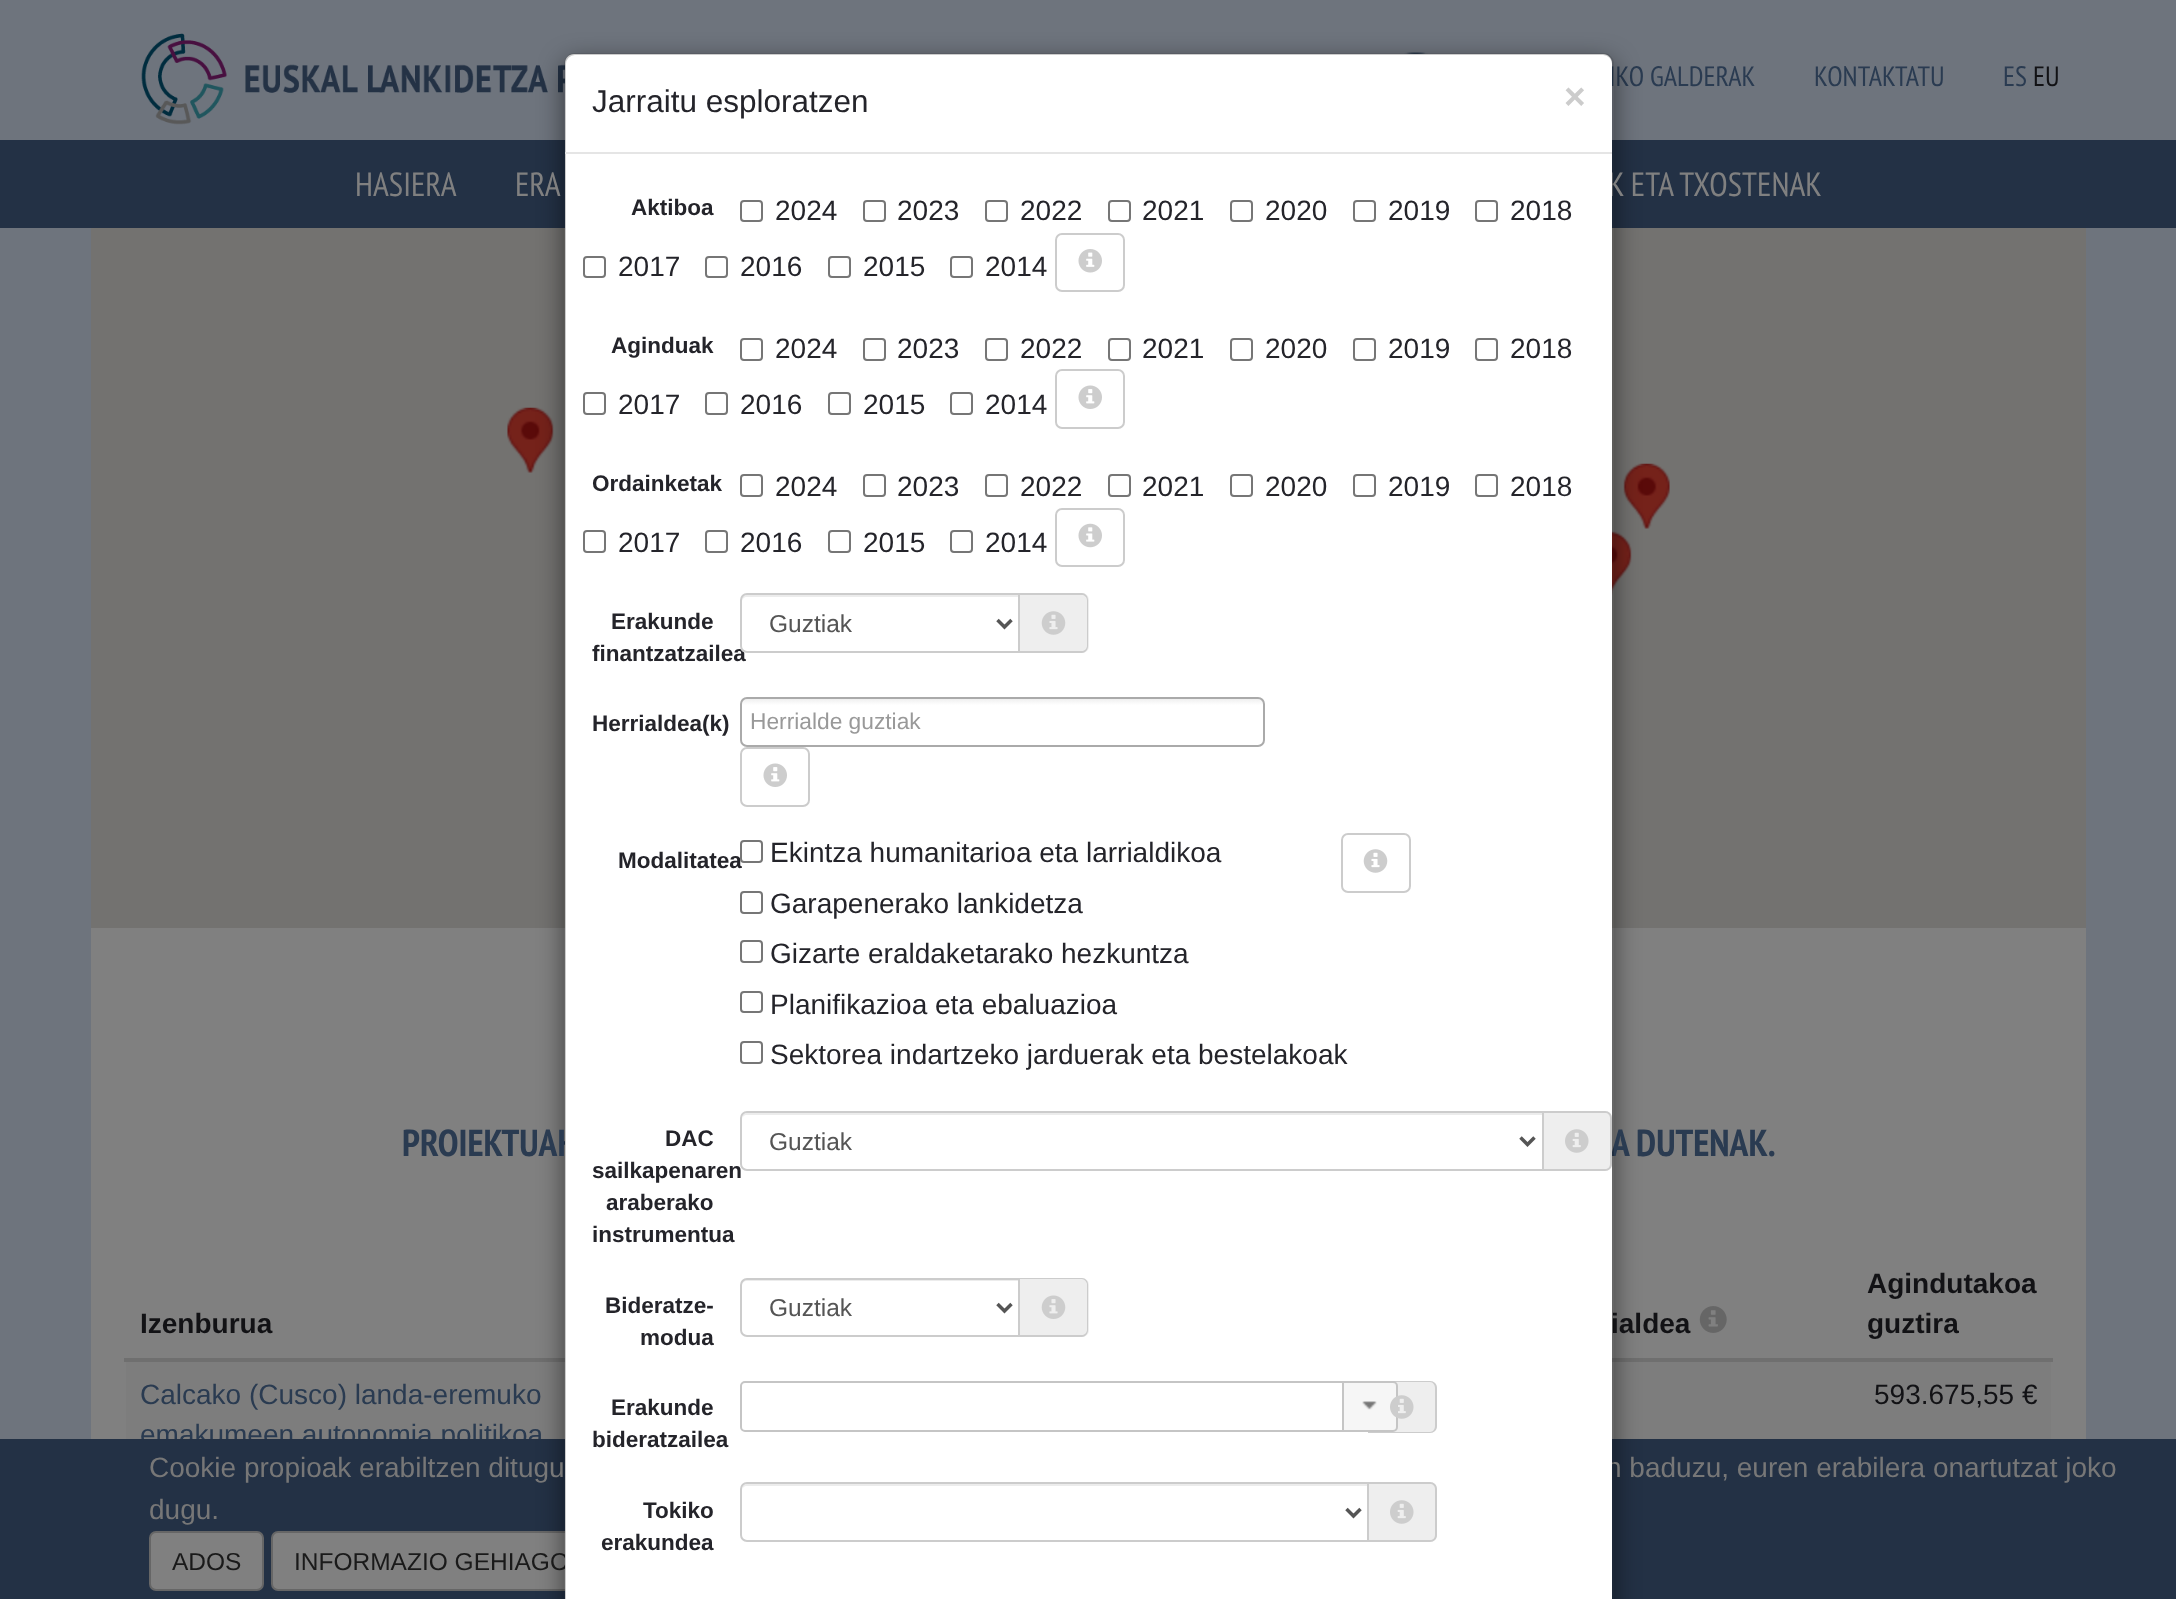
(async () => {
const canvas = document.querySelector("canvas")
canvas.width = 2176
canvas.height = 1599
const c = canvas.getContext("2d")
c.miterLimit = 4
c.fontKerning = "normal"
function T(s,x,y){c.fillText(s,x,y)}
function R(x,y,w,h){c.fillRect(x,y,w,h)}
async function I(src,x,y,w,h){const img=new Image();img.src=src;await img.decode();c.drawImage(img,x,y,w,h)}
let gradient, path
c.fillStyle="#6e747d"
R(0,0,2176,1599)
await I("1.png",141,33,424,92)
await I("2.png",1404,52,24,2)
c.font="28px PT Sans Narrow"
c.fillStyle="#2a3b51"
T("IKO GALDERAK",1609,86)
T("KONTAKTATU",1814,86)
T("ES",2003,86)
c.fillStyle="#121215"
T("EU",2033,86)
c.fillStyle="#808080"
R(91,928,1995,511)
c.fillStyle="#737270"
R(91,228,1995,700)
await I("12.png",507,407,47,66)
await I("13.png",1623,463,47,66)
await I("14.png",1612,531,20,64)
c.fillStyle="#6f6f6f"
R(124,1358,441,4)
R(1612,1358,441,4)
c.fillStyle="#7d7d7d"
R(126,1362,1925,77)
c.fillStyle="#233145"
R(0,140,2176,88)
c.font="28px Liberation Sans"
c.fillStyle="#2a3b51"
T("emakumeen autonomia politikoa",140,1444)
c.fillStyle="#233145"
R(0,1439,2176,160)
c.fillStyle="#808080"
c.beginPath()
c.roundRect(272,1532,319,58,6)
c.fill()
c.strokeStyle="#666"
c.lineWidth=2
c.stroke()
c.save()
path = new Path2D("M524 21h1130v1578h-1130zm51 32h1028c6 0 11 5 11 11v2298c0 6-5 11-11 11h-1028c-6 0-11-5-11-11v-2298c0-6 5-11 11-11z")
c.clip(path,"evenodd")
c.fillStyle="#00000080"
c.filter="blur(13px)"
c.beginPath()
c.roundRect(564,61,1050,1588,11)
c.fill()
c.filter="none"
c.restore()
c.font="bold 37.5px PT Sans Narrow"
c.fillStyle="#2a3b51"
T("PROIEKTUAK",402,1156)
T("A DUTENAK.",1611,1156)
c.font="33.5px PT Sans Narrow"
c.fillStyle="#808080"
T("K ETA TXOSTENAK",1608,196)
c.font="28px Liberation Sans"
c.fillStyle="#777"
T("n baduzu, euren erabilera onartutzat joko",1606,1477)
c.font="24.5px Liberation Sans"
c.fillStyle="#1a1a1a"
T("INFORMAZIO GEHIAGO",294,1570)
c.fillStyle="#fff"
path = new Path2D("M574 54h1029c5 0 9 4 9 9v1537h-1047v-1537c0-5 4-9 9-9z")
c.fill(path)
c.font="bold 28px Liberation Sans"
c.fillStyle="#121215"
T("ialdea",1611,1333)
c.beginPath()
c.roundRect(565,54,1048,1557,10)
c.strokeStyle="#00000033"
c.stroke()
c.fillStyle="#e5e5e5"
R(565,152,1047,2)
c.font="31.5px Liberation Sans"
c.fillStyle="#24242a"
T("Jarraitu esploratzen",592,112)
c.font="bold 37px Liberation Sans"
c.fillStyle="#ccc"
T("×",1564,109)
c.font="bold 22.5px Liberation Sans"
c.fillStyle="#24242a"
T("Aktiboa",631,215)
c.beginPath()
c.roundRect(741,201,21,20,3)
c.strokeStyle="#767676"
c.stroke()
c.font="28px Liberation Sans"
T("2024",775,220)
c.beginPath()
c.roundRect(864,201,21,20,3)
c.stroke()
T("2023",897,220)
c.beginPath()
c.roundRect(986,201,21,20,3)
c.stroke()
T("2022",1020,220)
c.beginPath()
c.roundRect(1109,201,21,20,3)
c.stroke()
T("2021",1142,220)
c.beginPath()
c.roundRect(1231,201,21,20,3)
c.stroke()
T("2020",1265,220)
c.beginPath()
c.roundRect(1354,201,21,20,3)
c.stroke()
T("2019",1388,220)
c.beginPath()
c.roundRect(1476,201,21,20,3)
c.stroke()
T("2018",1510,220)
c.beginPath()
c.roundRect(584,257,21,20,3)
c.stroke()
T("2017",618,276)
c.beginPath()
c.roundRect(706,257,21,20,3)
c.stroke()
T("2016",740,276)
c.beginPath()
c.roundRect(829,257,21,20,3)
c.stroke()
T("2015",863,276)
c.beginPath()
c.roundRect(951,257,21,20,3)
c.stroke()
T("2014",985,276)
c.beginPath()
c.roundRect(1056,234,68,57,6)
c.strokeStyle="#ccc"
c.stroke()
await I("3.png",1078,249,24,24)
c.font="bold 22.5px Liberation Sans"
T("Aginduak",611,353)
c.beginPath()
c.roundRect(741,339,21,21,3)
c.strokeStyle="#767676"
c.stroke()
c.font="28px Liberation Sans"
T("2024",775,358)
c.beginPath()
c.roundRect(864,339,21,21,3)
c.stroke()
T("2023",897,358)
c.beginPath()
c.roundRect(986,339,21,21,3)
c.stroke()
T("2022",1020,358)
c.beginPath()
c.roundRect(1109,339,21,21,3)
c.stroke()
T("2021",1142,358)
c.beginPath()
c.roundRect(1231,339,21,21,3)
c.stroke()
T("2020",1265,358)
c.beginPath()
c.roundRect(1354,339,21,21,3)
c.stroke()
T("2019",1388,358)
c.beginPath()
c.roundRect(1476,339,21,21,3)
c.stroke()
T("2018",1510,358)
c.beginPath()
c.roundRect(584,393,21,21,3)
c.stroke()
T("2017",618,414)
c.beginPath()
c.roundRect(706,393,21,21,3)
c.stroke()
T("2016",740,414)
c.beginPath()
c.roundRect(829,393,21,21,3)
c.stroke()
T("2015",863,414)
c.beginPath()
c.roundRect(951,393,21,21,3)
c.stroke()
T("2014",985,414)
c.beginPath()
c.roundRect(1056,370,68,58,6)
c.strokeStyle="#ccc"
c.stroke()
await I("4.png",1078,385,24,24)
c.font="bold 22.5px Liberation Sans"
T("Ordainketak",592,491)
c.beginPath()
c.roundRect(741,475,21,21,3)
c.strokeStyle="#767676"
c.stroke()
c.font="28px Liberation Sans"
T("2024",775,496)
c.beginPath()
c.roundRect(864,475,21,21,3)
c.stroke()
T("2023",897,496)
c.beginPath()
c.roundRect(986,475,21,21,3)
c.stroke()
T("2022",1020,496)
c.beginPath()
c.roundRect(1109,475,21,21,3)
c.stroke()
T("2021",1142,496)
c.beginPath()
c.roundRect(1231,475,21,21,3)
c.stroke()
T("2020",1265,496)
c.beginPath()
c.roundRect(1354,475,21,21,3)
c.stroke()
T("2019",1388,496)
c.beginPath()
c.roundRect(1476,475,21,21,3)
c.stroke()
T("2018",1510,496)
c.beginPath()
c.roundRect(584,531,21,21,3)
c.stroke()
T("2017",618,552)
c.beginPath()
c.roundRect(706,531,21,21,3)
c.stroke()
T("2016",740,552)
c.beginPath()
c.roundRect(829,531,21,21,3)
c.stroke()
T("2015",863,552)
c.beginPath()
c.roundRect(951,531,21,21,3)
c.stroke()
T("2014",985,552)
c.beginPath()
c.roundRect(1056,509,68,57,6)
c.strokeStyle="#ccc"
c.stroke()
await I("5.png",1078,523,24,25)
c.font="bold 22.5px Liberation Sans"
T("Erakunde",611,629)
T("finantzatzailea",592,661)
c.fillStyle="#fff"
c.beginPath()
c.roundRect(740,593,280,60,[7,0,0,7])
c.fill()
c.fillStyle="#ececec"
path = new Path2D("M747 597h271v54h1v-56h-273c-4 1-4 4-4 7c0-3 2-5 5-5z")
c.fill(path)
c.beginPath()
c.roundRect(741,594,278,58,[6,0,0,6])
c.stroke()
path = new Path2D("M997.5 620l7 7l7-7")
c.strokeStyle="#555"
c.lineWidth=3.5
c.stroke(path)
c.font="24.5px Liberation Sans"
c.fillStyle="#555"
T("Guztiak",769,632)
c.fillStyle="#eee"
c.beginPath()
c.roundRect(1020,593,69,60,[0,7,7,0])
c.fill()
c.fillStyle="#ccc"
path = new Path2D("M1020 593h62c3 0 6 3 6 7v46c0 4-3 7-6 7h-62zm0 2h62c2 0 5 2 5 5v46c0 3-3 5-5 5h-62z")
c.fill(path,"evenodd")
await I("6.png",1041,611,25,24)
c.font="bold 22.5px Liberation Sans"
c.fillStyle="#24242a"
T("Herrialdea(k)",592,731)
c.save()
c.beginPath()
c.roundRect(740,697,525,50,7)
c.clip()
gradient = c.createLinearGradient(1003,698,1003,746)
gradient.addColorStop(.01,"#eee")
gradient.addColorStop(.15,"#fff")
c.fillStyle = gradient
R(740,698,525,48)
c.restore()
c.beginPath()
c.roundRect(741,698,523,48,6)
c.strokeStyle="#aaa"
c.lineWidth=2
c.stroke()
c.font="22.75px Liberation Sans"
c.fillStyle="#999"
T("Herrialde guztiak",750,729)
c.beginPath()
c.roundRect(741,748,68,58,6)
c.strokeStyle="#ccc"
c.stroke()
await I("4.png",763,763,24,24)
c.font="bold 22.5px Liberation Sans"
c.fillStyle="#24242a"
T("Modalitatea",618,868)
c.beginPath()
c.roundRect(741,841,21,21,3)
c.strokeStyle="#767676"
c.stroke()
c.font="28px Liberation Sans"
T("Ekintza humanitarioa eta larrialdikoa",770,862)
c.beginPath()
c.roundRect(741,892,21,21,3)
c.stroke()
T("Garapenerako lankidetza",770,913)
c.beginPath()
c.roundRect(741,941,21,21,3)
c.stroke()
T("Gizarte eraldaketarako hezkuntza",770,963)
c.beginPath()
c.roundRect(741,992,21,20,3)
c.stroke()
T("Planifikazioa eta ebaluazioa",770,1014)
c.beginPath()
c.roundRect(741,1042,21,21,3)
c.stroke()
T("Sektorea indartzeko jarduerak eta bestelakoak",770,1064)
c.beginPath()
c.roundRect(1342,834,68,58,6)
c.strokeStyle="#ccc"
c.stroke()
await I("7.png",1363,849,25,24)
c.font="bold 22.5px Liberation Sans"
T("DAC",665,1146)
T("sailkapenaren",592,1178)
T("araberako",606,1210)
T("instrumentua",592,1242)
c.fillStyle="#ececec"
path = new Path2D("M747 1115h795v-2h-795c-4 0-5 4-5 7c0-3 2-5 5-5z")
c.fill(path)
c.beginPath()
c.roundRect(741,1112,802,58,[6,0,0,6])
c.stroke()
path = new Path2D("M1520.5 1137.5l7 7l7-7")
c.strokeStyle="#555"
c.lineWidth=3.5
c.stroke(path)
c.font="24.5px Liberation Sans"
c.fillStyle="#555"
T("Guztiak",769,1150)
c.fillStyle="#eee"
c.beginPath()
c.roundRect(1544,1111,68,60,[0,7,7,0])
c.fill()
c.fillStyle="#ccc"
path = new Path2D("M1544 1111h61c4 0 7 3 7 7v46c0 4-3 7-7 7h-61zm0 2h61c3 0 5 2 5 5v46c0 3-2 5-5 5h-61z")
c.fill(path,"evenodd")
await I("8.png",1565,1129,24,24)
c.font="bold 22.5px Liberation Sans"
c.fillStyle="#24242a"
T("Bideratze-",605,1313)
T("modua",640,1345)
c.fillStyle="#ececec"
path = new Path2D("M747 1281h271v54h1v-56h-273c-4 1-4 4-4 7c0-3 2-5 5-5z")
c.fill(path)
c.beginPath()
c.roundRect(741,1279,278,57,[6,0,0,6])
c.strokeStyle="#ccc"
c.lineWidth=2
c.stroke()
path = new Path2D("M997.5 1304l7 7l7-7")
c.strokeStyle="#555"
c.lineWidth=3.5
c.stroke(path)
c.font="24.5px Liberation Sans"
c.fillStyle="#555"
T("Guztiak",769,1316)
c.fillStyle="#eee"
c.beginPath()
c.roundRect(1020,1278,69,59,[0,7,7,0])
c.fill()
c.fillStyle="#ccc"
path = new Path2D("M1020 1278h62c3 0 6 3 6 6v46c0 4-3 7-6 7h-62zm0 1h62c2 0 5 3 5 5v46c0 3-3 5-5 5h-62z")
c.fill(path,"evenodd")
await I("9.png",1041,1295,25,24)
c.font="bold 22.5px Liberation Sans"
c.fillStyle="#24242a"
T("Erakunde",611,1415)
T("bideratzailea",592,1447)
c.beginPath()
c.roundRect(741,1382,602,49,[4,0,0,4])
c.strokeStyle="#c5c5c5"
c.lineWidth=2
c.stroke()
c.fillStyle="#eee"
c.beginPath()
c.roundRect(1369,1381,68,52,[0,7,7,0])
c.fill()
c.fillStyle="#ccc"
path = new Path2D("M1368 1381h62c4 0 7 3 7 7v38c0 4-3 7-7 7h-62zm0 1h62c3 0 5 3 5 6v38c0 3-2 6-5 6h-62z")
c.fill(path,"evenodd")
c.fillStyle="#f6f6f6"
c.beginPath()
c.roundRect(1343,1382,54,49,[0,4,4,0])
c.fill()
c.stroke()
await I("10.png",1362,1401,15,9)
await I("11.png",1390,1395,24,24)
c.fillStyle="#24242a"
T("Tokiko",643,1518)
T("erakundea",601,1550)
c.fillStyle="#eee"
c.beginPath()
c.roundRect(1369,1482,68,60,[0,7,7,0])
c.fill()
c.fillStyle="#ccc"
path = new Path2D("M1368 1482h62c4 0 7 3 7 7v46c0 4-3 7-7 7h-62zm0 2h62c3 0 5 2 5 5v46c0 3-2 5-5 5h-62z")
c.fill(path,"evenodd")
c.fillStyle="#fff"
c.beginPath()
c.roundRect(740,1482,629,60,[7,0,0,7])
c.fill()
c.fillStyle="#ececec"
path = new Path2D("M747 1486h620v-2h-620c-4 0-5 4-5 7c0-3 2-5 5-5z")
c.fill(path)
c.beginPath()
c.roundRect(741,1483,627,58,[6,0,0,6])
c.strokeStyle="#ccc"
c.stroke()
path = new Path2D("M1346.5 1509l7 7l7-7")
c.strokeStyle="#555"
c.lineWidth=3.5
c.stroke(path)
await I("8.png",1390,1500,24,24)
c.font="bold 28px Liberation Sans"
c.fillStyle="#121215"
T("Izenburua",140,1333)
await I("15.png",1699,1306,28,27)
T("Agindutakoa",1867,1293)
T("guztira",1867,1333)
c.font="28px Liberation Sans"
c.fillStyle="#2a3b51"
T("Calcako (Cusco) landa-eremuko",140,1404)
c.fillStyle="#121215"
T("593.675,55 €",1874,1404)
c.font="33.5px PT Sans Narrow"
c.fillStyle="#808080"
T("HASIERA",355,196)
T("ERA",515,196)
c.font="28px Liberation Sans"
c.fillStyle="#777"
T("Cookie propioak erabiltzen ditugu",149,1477)
T("dugu.",149,1519)
c.fillStyle="#808080"
c.beginPath()
c.roundRect(150,1532,113,58,6)
c.fill()
c.strokeStyle="#666"
c.lineWidth=2
c.stroke()
c.font="24.5px Liberation Sans"
c.fillStyle="#1a1a1a"
T("ADOS",172,1570)
})()
